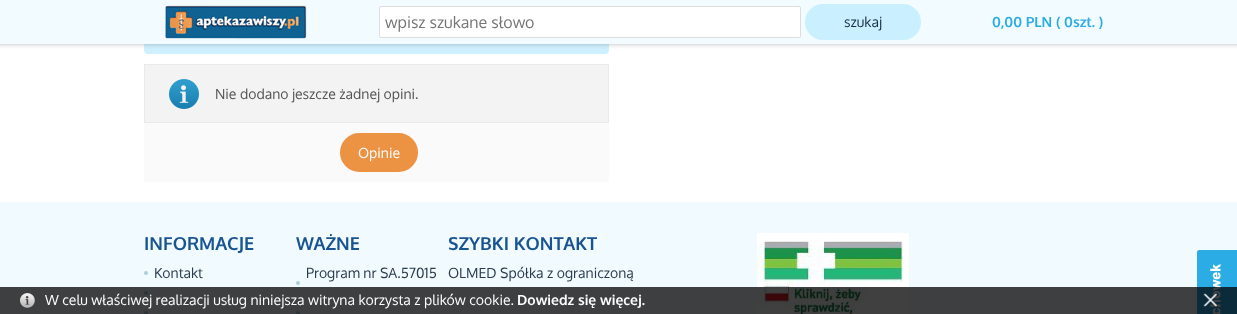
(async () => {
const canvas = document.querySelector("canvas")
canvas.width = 1237
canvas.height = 314
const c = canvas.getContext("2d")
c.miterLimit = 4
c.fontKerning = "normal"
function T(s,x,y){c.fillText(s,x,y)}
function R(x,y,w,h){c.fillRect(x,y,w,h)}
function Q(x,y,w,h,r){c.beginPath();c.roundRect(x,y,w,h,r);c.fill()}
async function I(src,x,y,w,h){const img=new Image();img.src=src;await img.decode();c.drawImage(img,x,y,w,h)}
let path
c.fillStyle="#fff"
R(0,0,1237,314)
c.fillStyle="#cff1ff"
Q(144,15,465,39,4)
c.fillStyle="#000"
c.filter="blur(5px)"
c.beginPath()
c.rect(-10,-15,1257,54)
c.fill()
c.filter="none"
c.fillStyle="#f2fbff"
R(0,0,1237,44)
await I("1.png",165,5,142,34)
c.fillStyle="#fff"
c.beginPath()
c.roundRect(379.5,6.5,421,31,1.5)
c.fill()
c.strokeStyle="#ddd"
c.stroke()
c.font="16px Oxygen"
c.fillStyle="#757575"
T("wpisz szukane słowo",385,28)
c.fillStyle="#caefff"
c.beginPath()
c.roundRect(806.5,5.5,113,33,16.5)
c.fill()
c.strokeStyle="#caefff"
c.lineWidth=3
c.stroke()
c.font="14px Oxygen"
c.fillStyle="#182c41"
T("szukaj",844,27)
c.font="bold 14px Oxygen"
c.fillStyle="#2cace5"
T("0,00 PLN ( 0szt. )",992,27)
c.fillStyle="#f3f3f3"
R(145,65,463,57)
await I("2.png",169,79,30,30)
c.strokeStyle="#e9e9e9"
c.lineWidth=1
c.strokeRect(144.5,64.5,464,58)
c.font="14px Oxygen"
c.fillStyle="#535353"
T("Nie dodano jeszcze żadnej opini.",215,99)
c.fillStyle="#fafafa"
R(144,123,465,59)
c.fillStyle="#ec9243"
c.beginPath()
c.roundRect(341.5,134.5,75,36,18)
c.fill()
c.strokeStyle="#ec9243"
c.lineWidth=3
c.stroke()
c.fillStyle="#fff"
T("Opinie",358,158)
c.fillStyle="#f1fafe"
R(0,202,1237,112)
c.font="bold 18px Oxygen"
c.fillStyle="#185492"
T("INFORMACJE",144,250)
c.fillStyle="#aecdda"
c.beginPath()
c.arc(146,273,2,0,7)
c.fill()
c.font="14px Oxygen"
c.fillStyle="#293b4e"
T("Kontakt",154,278)
c.fillStyle="#aecdda"
c.beginPath()
c.arc(146,293,2,0,7)
c.fill()
c.beginPath()
c.arc(146,313,2,0,7)
c.fill()
c.font="bold 18px Oxygen"
c.fillStyle="#185492"
T("WAŻNE",296,250)
c.font="14px Oxygen"
c.fillStyle="#293b4e"
T("Program nr SA.57015",306,278)
c.fillStyle="#aecdda"
c.beginPath()
c.arc(298,283,2,0,7)
c.fill()
c.beginPath()
c.arc(298,313,2,0,7)
c.fill()
c.font="bold 18px Oxygen"
c.fillStyle="#185492"
T("SZYBKI KONTAKT",448,250)
c.font="14px Oxygen"
c.fillStyle="#293b4e"
T("OLMED Spółka z ograniczoną",448,278)
await I("3.png",757,233,152,81)
c.fillStyle="#2cace5"
path = new Path2D("M1199 250h38v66h-38c-1 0-2-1-2-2v-62c0-1 1-2 2-2z")
c.fill(path)
await I("4.png",1210,264,11,50)
c.fillStyle="#000000bf"
R(0,287,1237,27)
await I("5.png",20,293,15,15)
c.fillStyle="#fff"
T("W celu właściwej realizacji usług niniejsza witryna korzysta z plików cookie.",45,305)
c.font="bold 14px Oxygen"
T("Dowiedz się więcej.",517,305)
await I("6.png",1203,293,14,14)
})()
